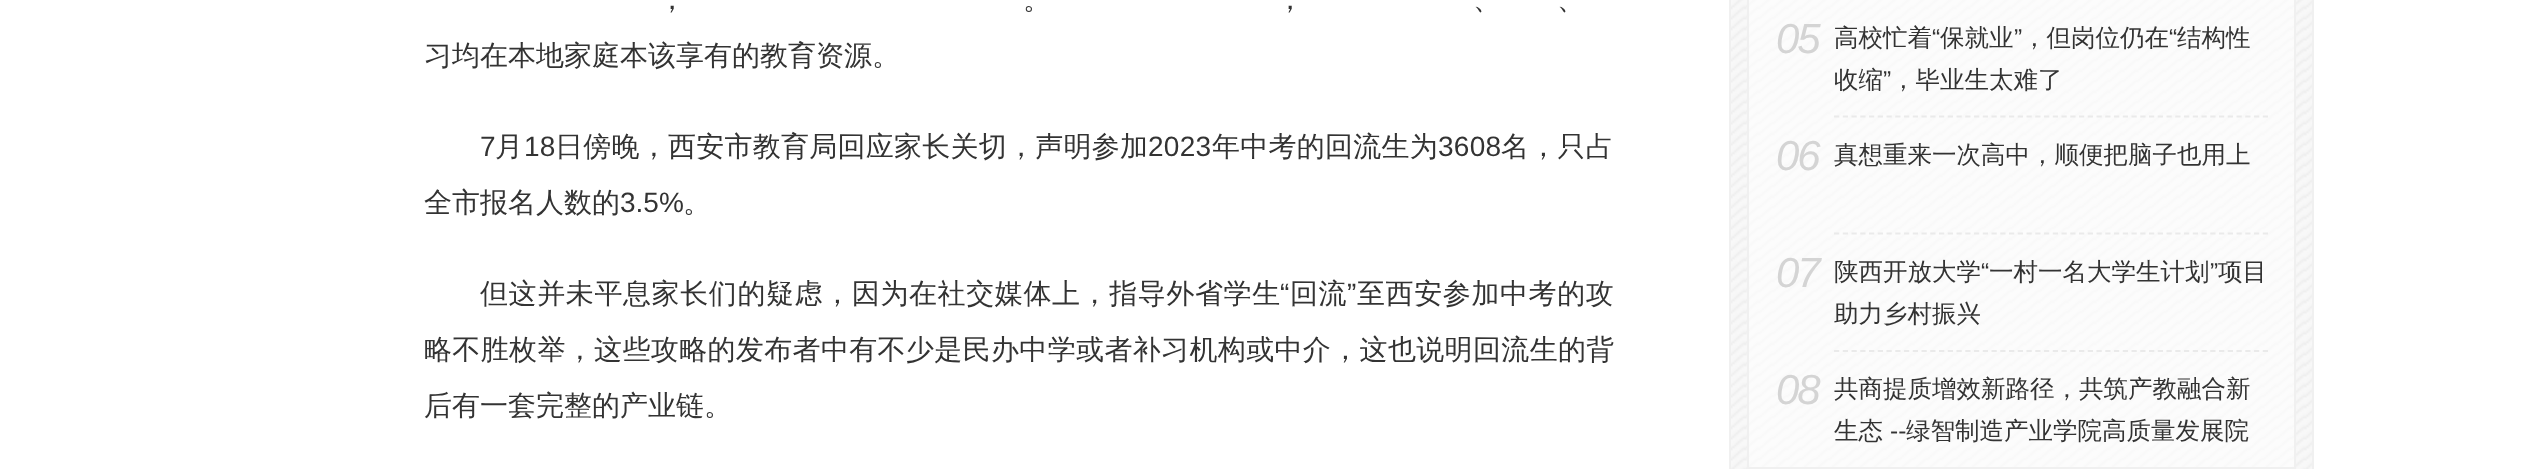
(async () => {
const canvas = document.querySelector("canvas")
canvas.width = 2526
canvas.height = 469
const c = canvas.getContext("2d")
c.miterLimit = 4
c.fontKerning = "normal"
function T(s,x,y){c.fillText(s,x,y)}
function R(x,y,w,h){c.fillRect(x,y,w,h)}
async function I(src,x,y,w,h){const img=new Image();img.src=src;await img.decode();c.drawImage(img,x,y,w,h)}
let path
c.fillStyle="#fff"
R(0,0,2526,469)
c.font="500 28px WenQuanYi Zen Hei"
c.fillStyle="#333"
T("，",658,9)
T("。",1023,9)
T("，",1276,9)
T("、",1473,9)
T("、",1557,9)
T("习均在本地家庭本该享有的教育资源。",424,65)
c.letterSpacing="0.25px"
c.font="28px Liberation Sans"
T("7",480,156)
c.font="500 28px WenQuanYi Zen Hei"
T("月",495,156)
c.font="28px Liberation Sans"
T("18",524,156)
c.font="500 28px WenQuanYi Zen Hei"
T("日傍晚，西安市教育局回应家长关切，声明参加",555,156)
c.font="28px Liberation Sans"
T("2023",1148,156)
c.font="500 28px WenQuanYi Zen Hei"
T("年中考的回流生为",1212,156)
c.font="28px Liberation Sans"
T("3608",1438,156)
c.font="500 28px WenQuanYi Zen Hei"
T("名，只占",1501,156)
c.letterSpacing="0px"
T("全市报名人数的",424,212)
c.font="28px Liberation Sans"
T("3.5%",620,212)
c.font="500 28px WenQuanYi Zen Hei"
T("。",683,212)
c.letterSpacing="0.6px"
T("但这并未平息家长们的疑虑，因为在社交媒体上，指导外省学生",480,303)
c.font="28px Liberation Sans"
T("“",1280,303)
c.font="500 28px WenQuanYi Zen Hei"
T("回流",1290,303)
c.font="28px Liberation Sans"
T("”",1347,303)
c.font="500 28px WenQuanYi Zen Hei"
T("至西安参加中考的攻",1357,303)
c.letterSpacing="0.35px"
T("略不胜枚举，这些攻略的发布者中有不少是民办中学或者补习机构或中介，这也说明回流生的背",424,359)
c.letterSpacing="0px"
T("后有一套完整的产业链。",424,415)
await I("1.png",1731,0,581,469)
c.strokeStyle="#f0f0f0"
c.lineWidth=2
c.strokeRect(1730,-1,583,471)
c.strokeRect(1748,-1,547,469)
c.letterSpacing="-2px"
c.font="italic 42px Liberation Sans"
c.fillStyle="#d4d4d4"
T("05",1776,53)
c.letterSpacing="0px"
c.font="500 24.5px WenQuanYi Zen Hei"
c.fillStyle="#333"
T("高校忙着",1834,46)
c.font="24.5px Liberation Sans"
T("“",1932,46)
c.font="500 24.5px WenQuanYi Zen Hei"
T("保就业",1940,46)
c.font="24.5px Liberation Sans"
T("”",2014,46)
c.font="500 24.5px WenQuanYi Zen Hei"
T("，但岗位仍在",2022,46)
c.font="24.5px Liberation Sans"
T("“",2169,46)
c.font="500 24.5px WenQuanYi Zen Hei"
T("结构性",2177,46)
T("收缩",1834,88)
c.font="24.5px Liberation Sans"
T("”",1883,88)
c.font="500 24.5px WenQuanYi Zen Hei"
T("，毕业生太难了",1891,88)
path = new Path2D("M1834 116.5h434")
c.strokeStyle="#eaeaea"
c.lineWidth=1.8
c.setLineDash([5.25,3.5])
c.stroke(path)
c.letterSpacing="-2px"
c.font="italic 42px Liberation Sans"
c.fillStyle="#d4d4d4"
T("06",1776,170)
c.letterSpacing="0px"
c.font="500 24.5px WenQuanYi Zen Hei"
c.fillStyle="#333"
T("真想重来一次高中，顺便把脑子也用上",1834,163)
path = new Path2D("M1834 233.5h434")
c.stroke(path)
c.letterSpacing="-2px"
c.font="italic 42px Liberation Sans"
c.fillStyle="#d4d4d4"
T("07",1776,287)
c.letterSpacing="0px"
c.font="500 24.5px WenQuanYi Zen Hei"
c.fillStyle="#333"
T("陕西开放大学",1834,280)
c.font="24.5px Liberation Sans"
T("“",1981,280)
c.font="500 24.5px WenQuanYi Zen Hei"
T("一村一名大学生计划",1989,280)
c.font="24.5px Liberation Sans"
T("”",2210,280)
c.font="500 24.5px WenQuanYi Zen Hei"
T("项目",2218,280)
T("助力乡村振兴",1834,322)
path = new Path2D("M1834 351h434")
c.stroke(path)
c.letterSpacing="-2px"
c.font="italic 42px Liberation Sans"
c.fillStyle="#d4d4d4"
T("08",1776,404)
c.letterSpacing="0px"
c.font="500 24.5px WenQuanYi Zen Hei"
c.fillStyle="#333"
T("共商提质增效新路径，共筑产教融合新",1834,397)
T("生态",1834,439)
c.font="24.5px Liberation Sans"
T("--",1890,439)
c.font="500 24.5px WenQuanYi Zen Hei"
T("绿智制造产业学院高质量发展院",1906,439)
})()
